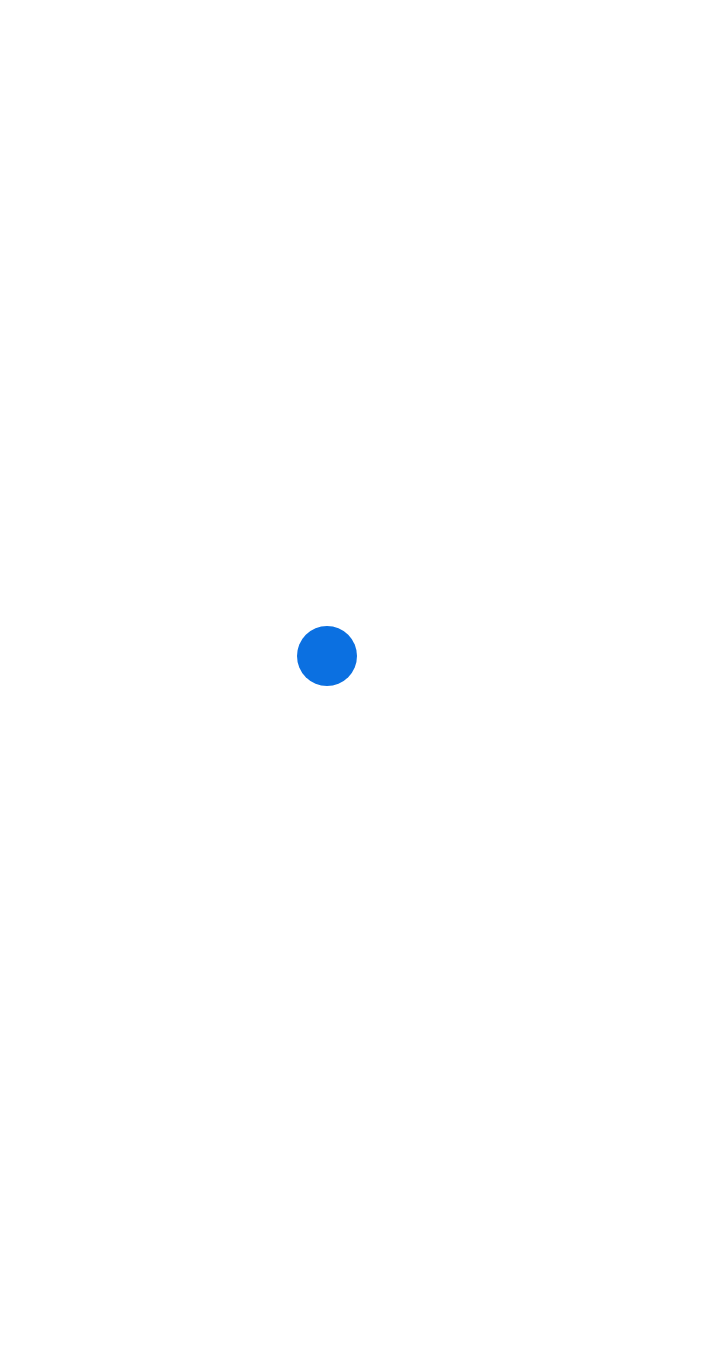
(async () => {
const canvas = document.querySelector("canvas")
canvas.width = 711
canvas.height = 1369
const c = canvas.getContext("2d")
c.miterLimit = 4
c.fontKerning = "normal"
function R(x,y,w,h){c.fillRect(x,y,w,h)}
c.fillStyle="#fff"
R(0,0,711,1369)
c.fillStyle="#0b70e1"
c.beginPath()
c.arc(327,656,30,0,7)
c.fill()
})()
